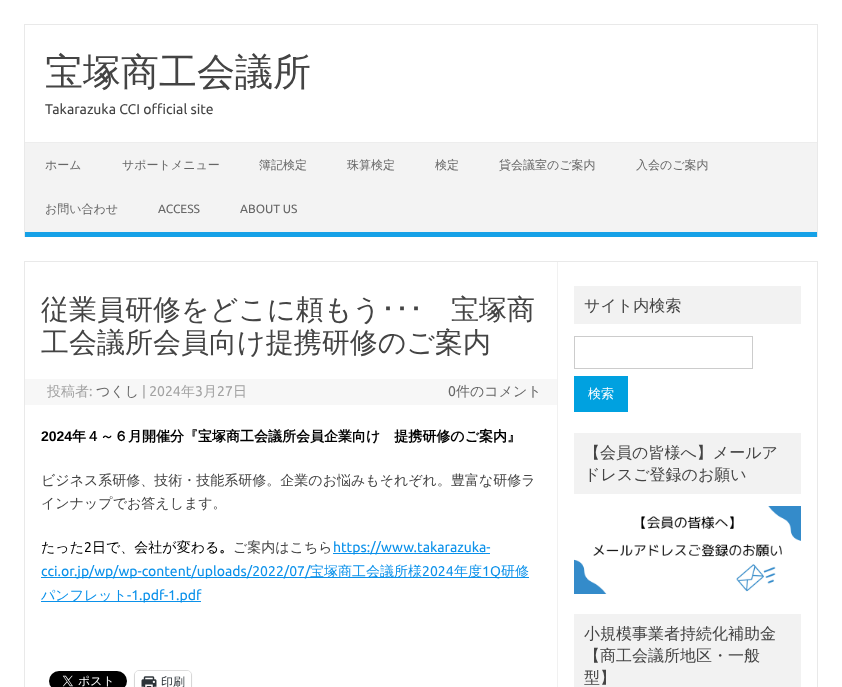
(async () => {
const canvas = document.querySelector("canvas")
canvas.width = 842
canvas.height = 687
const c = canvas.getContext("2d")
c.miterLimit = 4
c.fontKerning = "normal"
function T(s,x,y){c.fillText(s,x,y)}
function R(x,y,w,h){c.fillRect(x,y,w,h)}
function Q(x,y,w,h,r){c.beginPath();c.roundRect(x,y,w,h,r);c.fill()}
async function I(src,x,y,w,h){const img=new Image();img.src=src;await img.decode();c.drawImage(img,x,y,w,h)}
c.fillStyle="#fff"
R(0,0,842,687)
c.fillStyle="#e9e9e9"
R(24,24,794,1)
R(817,24,1,213)
R(24,24,1,213)
c.font="500 38px WenQuanYi Zen Hei"
c.fillStyle="#444"
T("宝塚商工会議所",45,85)
c.font="14px Ubuntu"
T("Takarazuka CCI official site",45,114)
c.fillStyle="#f3f3f3"
R(25,143,792,89)
c.fillStyle="#ededed"
R(25,142,792,1)
c.fillStyle="#16a1e7"
R(25,232,792,5)
c.font="500 12px WenQuanYi Zen Hei"
c.fillStyle="#666"
T("ホーム",45,169)
T("サポートメニュー",122,169)
T("簿記検定",259,169)
T("珠算検定",347,169)
T("検定",435,169)
T("貸会議室のご案内",499,169)
T("入会のご案内",636,169)
T("お問い合わせ",45,213)
c.font="12px Ubuntu"
T("ACCESS",158,213)
T("ABOUT US",240,213)
c.strokeStyle="#e9e9e9"
c.strokeRect(24.5,261.5,793,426)
c.fillStyle="#f1f1f1"
R(557,262,1,425)
c.font="500 28px WenQuanYi Zen Hei"
c.fillStyle="#444"
T("従業員研修をどこに頼もう",41,319)
c.font="28px IPAPGothic"
T("･･･",381,319)
c.font="500 28px WenQuanYi Zen Hei"
T("宝塚商",451,319)
T("工会議所会員向け提携研修のご案内",41,352)
c.fillStyle="#f7f7f7"
R(25,379,532,26)
c.font="500 14px WenQuanYi Zen Hei"
c.fillStyle="#a2a2a2"
T("投稿者",47,396)
c.font="14px Ubuntu"
T(":",89,396)
c.font="500 14px WenQuanYi Zen Hei"
c.fillStyle="#666"
T("つくし",96,396)
c.font="14px Ubuntu"
c.fillStyle="#a2a2a2"
T("| 2024",142,396)
c.font="500 14px WenQuanYi Zen Hei"
T("年",181,396)
c.font="14px Ubuntu"
T("3",195,396)
c.font="500 14px WenQuanYi Zen Hei"
T("月",203,396)
c.font="14px Ubuntu"
T("27",217,396)
c.font="500 14px WenQuanYi Zen Hei"
T("日",233,396)
c.font="14px Ubuntu"
c.fillStyle="#666"
T("0",448,396)
c.font="500 14px WenQuanYi Zen Hei"
T("件のコメント",456,396)
c.font="bold 14px Liberation Sans"
c.fillStyle="#000"
T("2024",41,441)
c.font="bold 14px WenQuanYi Zen Hei"
T("年４～６月開催分『宝塚商工会議所会員企業向け　提携研修のご案内』",72,441)
c.font="500 14px WenQuanYi Zen Hei"
c.fillStyle="#444"
T("ビジネス系研修、技術・技能系研修。企業のお悩みもそれぞれ。豊富な研修ラ",41,485)
T("インナップでお答えします。",41,508)
c.fillStyle="#000"
T("たった",41,552)
c.font="14px Ubuntu"
T("2",84,552)
c.font="500 14px WenQuanYi Zen Hei"
T("日で、会社が変わる",92,552)
c.font="bold 14px WenQuanYi Zen Hei"
T("。",219,552)
c.font="500 14px WenQuanYi Zen Hei"
c.fillStyle="#444"
T("ご案内はこちら",233,552)
c.fillStyle="#0b91ea"
R(333,553,157,1)
c.font="14px Ubuntu"
T("https://www.takarazuka-",333,552)
R(41,577,488,1)
T("cci.or.jp/wp/wp-content/uploads/2022/07/",41,576)
c.font="500 14px WenQuanYi Zen Hei"
T("宝塚商工会議所様",310,576)
c.font="14px Ubuntu"
T("2024",422,576)
c.font="500 14px WenQuanYi Zen Hei"
T("年度",454,576)
c.font="14px Ubuntu"
T("1Q",482,576)
c.font="500 14px WenQuanYi Zen Hei"
T("研修",501,576)
R(41,601,160,1)
T("パンフレット",41,600)
c.font="14px Ubuntu"
T("-1.pdf-1.pdf",127,600)
await I("1.png",49,671,78,16)
c.beginPath()
c.roundRect(134.5,670.5,57,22,4.5)
c.strokeStyle="#e0e0e0"
c.stroke()
c.fillStyle="#0000001f"
c.filter="blur(1px)"
c.beginPath()
c.roundRect(135,672,56,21,4)
c.fill()
c.filter="none"
c.fillStyle="#fff"
Q(135,671,56,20,4)
await I("2.png",141,676,16,11)
c.font="500 12px WenQuanYi Zen Hei"
c.fillStyle="#2c3338"
T("印刷",161,686)
c.fillStyle="#f2f2f2"
R(574,286,227,38)
c.font="500 16px WenQuanYi Zen Hei"
c.fillStyle="#444"
T("サイト内検索",584,311)
c.strokeStyle="#ccc"
c.strokeRect(574.5,336.5,178,32)
c.fillStyle="#00a1e0"
R(574,376,54,36)
c.font="500 13px WenQuanYi Zen Hei"
c.fillStyle="#fff"
T("検索",588,398)
c.fillStyle="#f2f2f2"
R(574,433,227,61)
c.font="500 16px WenQuanYi Zen Hei"
c.fillStyle="#444"
T("【会員の皆様へ】メールア",584,458)
T("ドレスご登録のお願い",584,480)
await I("3.png",574,506,227,88)
c.fillStyle="#f2f2f2"
R(574,614,227,73)
c.fillStyle="#444"
T("小規模事業者持続化補助金",584,639)
T("【商工会議所地区・一般",584,661)
T("型】",584,683)
})()
